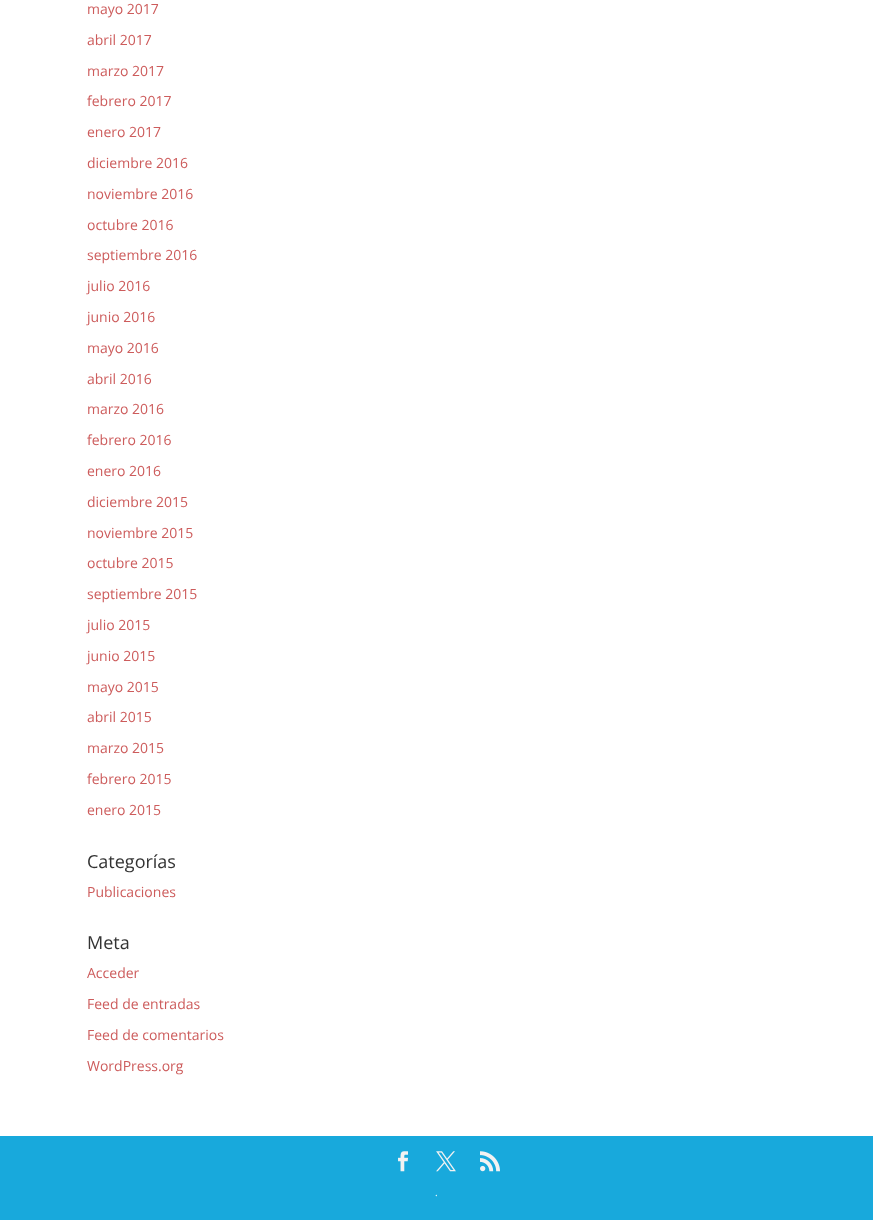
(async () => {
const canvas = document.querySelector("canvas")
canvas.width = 873
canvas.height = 1220
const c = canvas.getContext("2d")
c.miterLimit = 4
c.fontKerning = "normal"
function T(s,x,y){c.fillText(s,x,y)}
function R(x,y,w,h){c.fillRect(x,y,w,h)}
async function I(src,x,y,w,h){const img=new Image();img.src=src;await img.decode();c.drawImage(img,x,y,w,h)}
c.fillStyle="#fff"
R(0,0,873,1220)
c.font="14px Open Sans"
c.fillStyle="#cd5c5c"
T("mayo 2017",87,14)
T("abril 2017",87,45)
T("marzo 2017",87,76)
T("febrero 2017",87,106)
T("enero 2017",87,137)
T("diciembre 2016",87,168)
T("noviembre 2016",87,199)
T("octubre 2016",87,230)
T("septiembre 2016",87,260)
T("julio 2016",87,291)
T("junio 2016",87,322)
T("mayo 2016",87,353)
T("abril 2016",87,384)
T("marzo 2016",87,414)
T("febrero 2016",87,445)
T("enero 2016",87,476)
T("diciembre 2015",87,507)
T("noviembre 2015",87,538)
T("octubre 2015",87,568)
T("septiembre 2015",87,599)
T("julio 2015",87,630)
T("junio 2015",87,661)
T("mayo 2015",87,692)
T("abril 2015",87,722)
T("marzo 2015",87,753)
T("febrero 2015",87,784)
T("enero 2015",87,815)
c.font="18px Open Sans"
c.fillStyle="#333"
T("Categorías",87,868)
c.font="14px Open Sans"
c.fillStyle="#cd5c5c"
T("Publicaciones",87,897)
c.font="18px Open Sans"
c.fillStyle="#333"
T("Meta",87,949)
c.font="14px Open Sans"
c.fillStyle="#cd5c5c"
T("Acceder",87,978)
T("Feed de entradas",87,1009)
T("Feed de comentarios",87,1040)
T("WordPress.org",87,1071)
c.fillStyle="#18a9dc"
R(0,1136,873,84)
await I("1.png",398,1151,10,21)
await I("2.png",436,1151,20,21)
await I("3.png",480,1151,20,21)
c.font="10px Open Sans"
c.fillStyle="#fff"
T(".",435,1196)
})()
